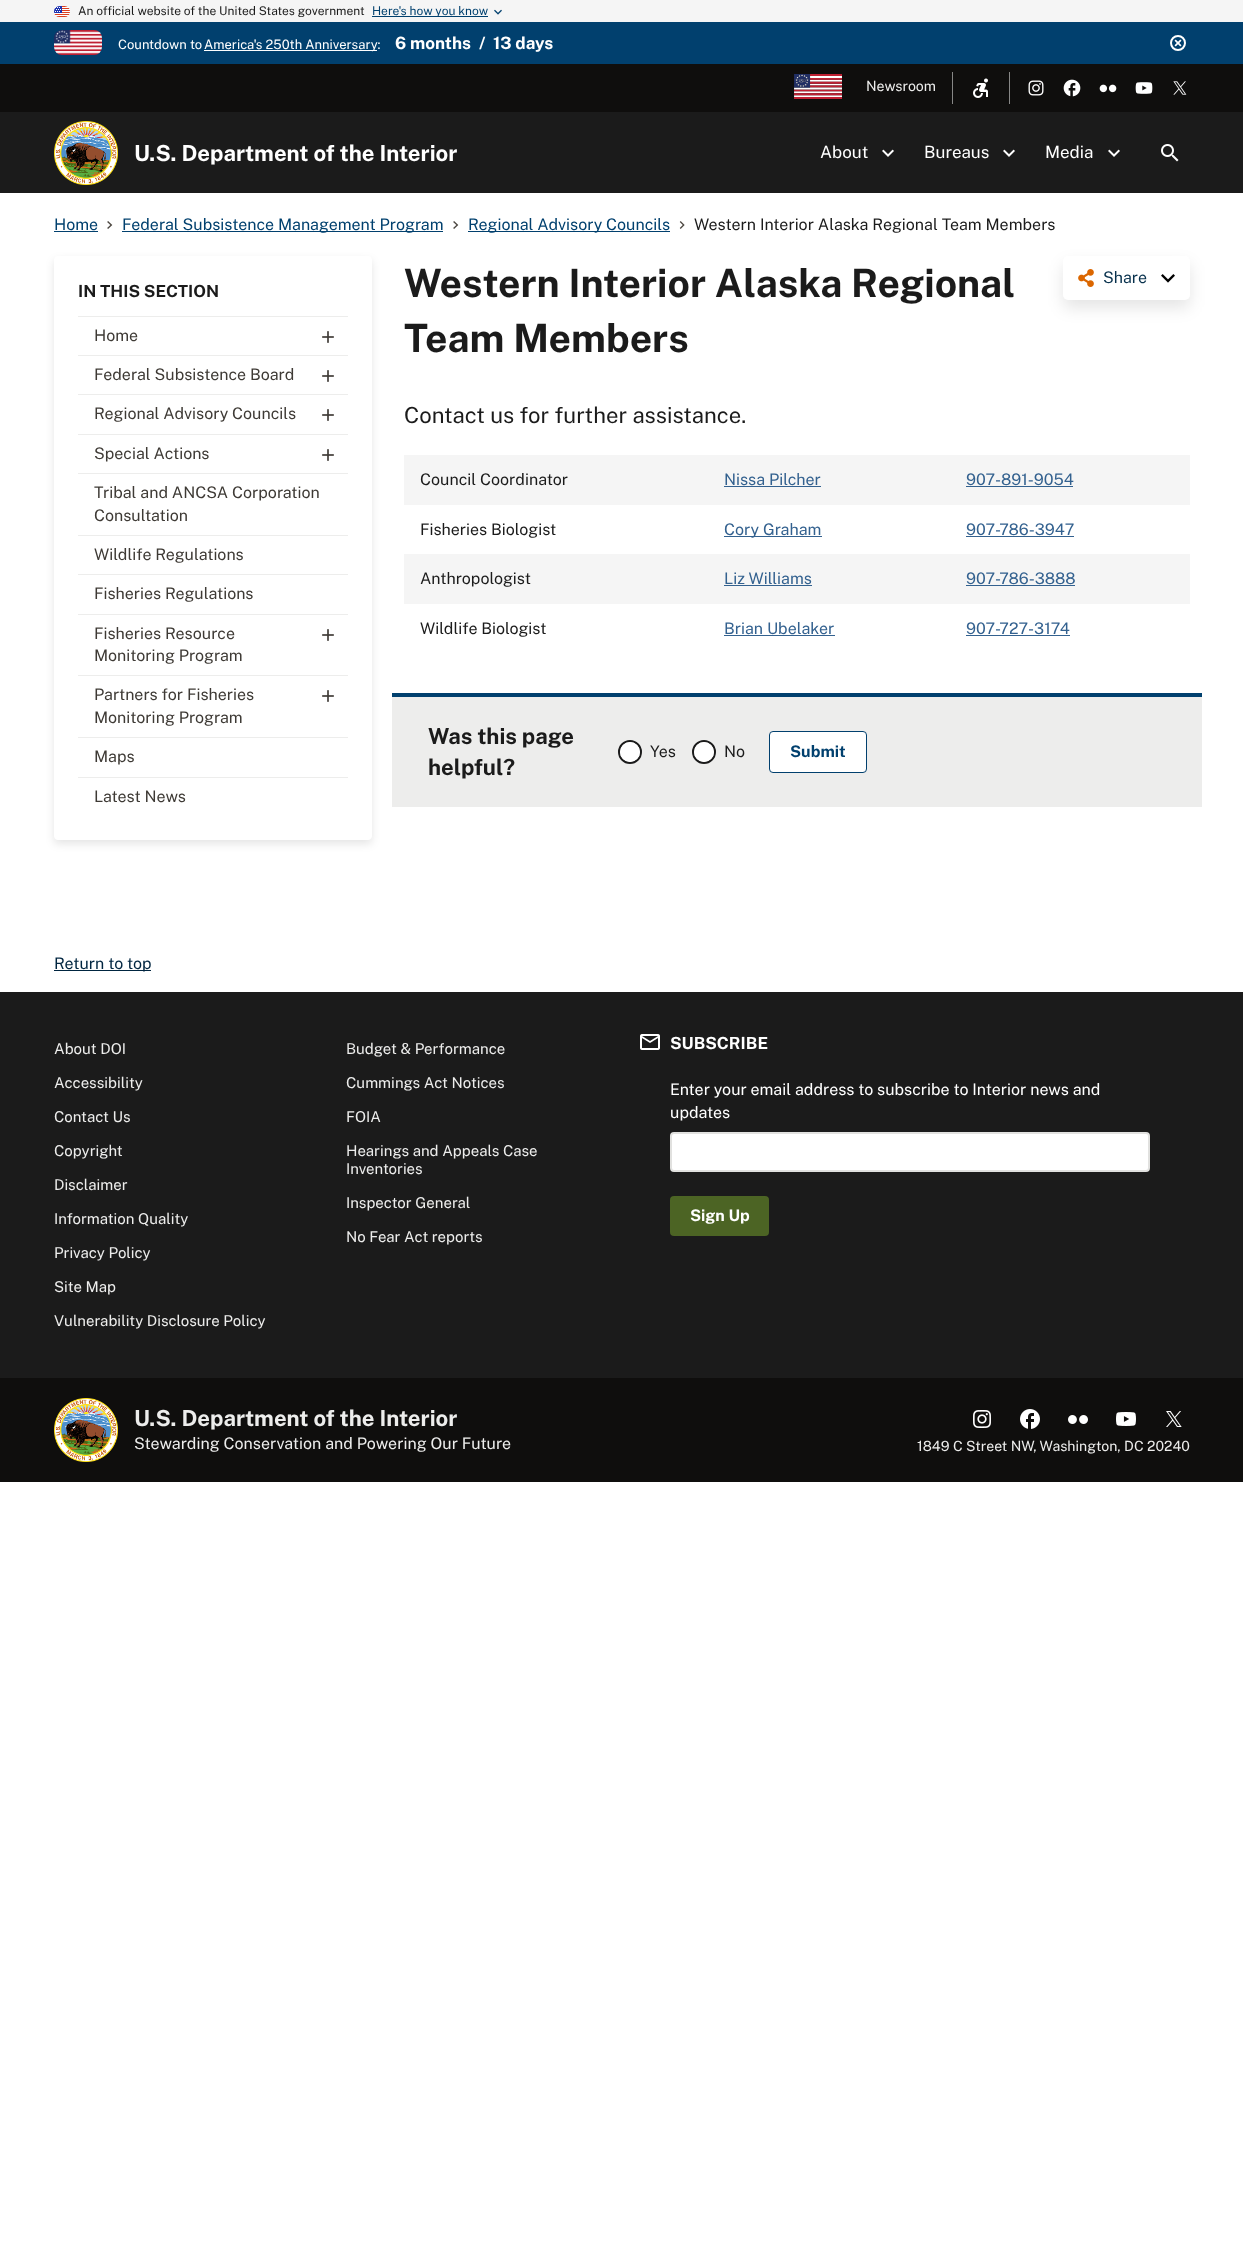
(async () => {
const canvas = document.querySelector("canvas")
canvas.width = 1243
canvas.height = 2252
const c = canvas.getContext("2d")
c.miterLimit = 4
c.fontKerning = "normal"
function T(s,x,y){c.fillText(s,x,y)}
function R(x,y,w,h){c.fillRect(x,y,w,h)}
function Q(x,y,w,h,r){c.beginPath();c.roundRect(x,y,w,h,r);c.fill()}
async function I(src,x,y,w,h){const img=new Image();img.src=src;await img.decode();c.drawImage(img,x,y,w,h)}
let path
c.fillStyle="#fff"
R(0,0,1243,2252)
c.fillStyle="#f5f5f5"
R(0,0,1243,22)
await I("1.png",54,6,16,11)
c.font="12px Public Sans"
c.fillStyle="#1b1b1b"
T("An official website of the United States government",78,15)
c.fillStyle="#01406e"
R(372,16,116,1)
T("Here's how you know",372,15)
await I("2.png",494,9,8,6)
R(0,22,1243,42)
await I("3.png",54,30,48,25)
c.font="13px Public Sans"
c.fillStyle="#fff"
T("Countdown to",118,49)
R(204,50,173,1)
T("America's 250th Anniversary:",204,49)
c.font="bold 17px Public Sans"
T("6 months",395,49)
T("/",479,49)
T("13 days",493,49)
await I("4.png",1174,39,8,8)
c.beginPath()
c.arc(1178,43,7,0,7)
c.strokeStyle="#fff"
c.lineWidth=2
c.stroke()
c.fillStyle="#0f0e0d"
R(0,64,1243,48)
await I("5.png",794,74,48,25)
c.font="14.1px Public Sans"
c.fillStyle="#ededec"
T("Newsroom",866,91)
c.fillStyle="#878786"
R(952,72,1,32)
await I("6.png",973,78,15,20)
R(1009,72,1,32)
await I("7.png",1028,80,16,16)
await I("8.png",1063,79,18,18)
await I("9.png",1099,84,18,9)
await I("10.png",1135,82,18,12)
await I("11.png",1173,81,14,14)
c.fillStyle="#1b1b1b"
R(0,112,1243,81)
await I("12.png",54,121,64,64)
c.font="bold 22.1px Public Sans"
c.fillStyle="#fff"
T("U.S. Department of the Interior",134,161)
await I("13.png",882,149,12,8)
c.font="17px Public Sans"
T("About",820,158)
await I("13.png",1003,149,12,8)
T("Bureaus",924,158)
await I("13.png",1108,149,12,8)
T("Media",1045,158)
await I("14.png",1161,144,18,18)
c.font="16px Public Sans"
c.fillStyle="#01406e"
T("Home",54,230)
R(54,231,44,1)
await I("15.png",107,221,6,8)
R(122,231,321,1)
T("Federal Subsistence Management Program",122,230)
await I("15.png",453,221,6,8)
R(468,231,202,1)
T("Regional Advisory Councils",468,230)
await I("16.png",679,221,6,8)
c.fillStyle="#1b1b1b"
T("Western Interior Alaska Regional Team Members",694,230)
c.save()
path = new Path2D("M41 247h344v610h-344zm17 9h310c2 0 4 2 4 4v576c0 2-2 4-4 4h-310c-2 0-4-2-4-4v-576c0-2 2-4 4-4z")
c.clip(path,"evenodd")
c.fillStyle="#0000001a"
c.filter="blur(4px)"
c.beginPath()
c.roundRect(54,260,318,584,4)
c.fill()
c.filter="none"
c.restore()
c.font="bold 16.75px Public Sans"
T("IN THIS SECTION",78,297)
c.fillStyle="#ededec"
R(78,316,270,1)
c.font="16px Public Sans"
c.fillStyle="#3e3a35"
T("Home",94,341)
await I("17.png",322,331,12,12)
c.fillStyle="#ededec"
R(78,355,270,1)
c.fillStyle="#3e3a35"
T("Federal Subsistence Board",94,380)
await I("17.png",322,370,12,12)
c.fillStyle="#ededec"
R(78,394,270,1)
c.fillStyle="#3e3a35"
T("Regional Advisory Councils",94,419)
await I("17.png",322,409,12,12)
c.fillStyle="#ededec"
R(78,434,270,1)
c.fillStyle="#3e3a35"
T("Special Actions",94,459)
await I("17.png",322,449,12,12)
c.fillStyle="#ededec"
R(78,473,270,1)
c.fillStyle="#3e3a35"
T("Tribal and ANCSA Corporation",94,498)
T("Consultation",94,521)
c.fillStyle="#ededec"
R(78,535,270,1)
c.fillStyle="#3e3a35"
T("Wildlife Regulations",94,560)
c.fillStyle="#ededec"
R(78,574,270,1)
c.fillStyle="#3e3a35"
T("Fisheries Regulations",94,599)
c.fillStyle="#ededec"
R(78,614,270,1)
c.fillStyle="#3e3a35"
T("Fisheries Resource",94,639)
await I("17.png",322,629,12,12)
T("Monitoring Program",94,661)
c.fillStyle="#ededec"
R(78,675,270,1)
c.fillStyle="#3e3a35"
T("Partners for Fisheries",94,700)
await I("17.png",322,690,12,12)
T("Monitoring Program",94,723)
c.fillStyle="#ededec"
R(78,737,270,1)
c.fillStyle="#3e3a35"
T("Maps",94,762)
c.fillStyle="#ededec"
R(78,777,270,1)
c.fillStyle="#3e3a35"
T("Latest News",94,802)
c.font="bold 39px Public Sans"
c.fillStyle="#1b1b1b"
T("Western Interior Alaska Regional",404,297)
T("Team Members",404,352)
c.fillStyle="#0000001a"
c.filter="blur(8px)"
c.beginPath()
c.roundRect(1063,264,127,44,5)
c.fill()
c.filter="none"
c.fillStyle="#fff"
Q(1063,256,127,44,5)
await I("18.png",1078,269,16,18)
c.font="16px Public Sans"
c.fillStyle="#08314d"
T("Share",1103,283)
await I("19.png",1161,274,14,9)
c.font="22.1px Public Sans"
c.fillStyle="#1b1b1b"
T("Contact us for further assistance.",404,423)
c.fillStyle="#f5f5f5"
R(404,455,786,50)
c.font="16px Public Sans"
c.fillStyle="#1b1b1b"
T("Council Coordinator",420,485)
c.fillStyle="#33618f"
T("Nissa Pilcher",724,485)
R(724,486,97,1)
T("907-891-9054",966,485)
R(966,486,107,1)
c.fillStyle="#1b1b1b"
T("Fisheries Biologist",420,535)
c.fillStyle="#33618f"
R(724,536,98,1)
T("Cory Graham",724,535)
T("907-786-3947",966,535)
R(966,536,108,1)
c.fillStyle="#f5f5f5"
R(404,554,786,50)
c.fillStyle="#1b1b1b"
T("Anthropologist",420,584)
c.fillStyle="#33618f"
T("Liz Williams",724,584)
R(724,585,88,1)
T("907-786-3888",966,584)
R(966,585,109,1)
c.fillStyle="#1b1b1b"
T("Wildlife Biologist",420,634)
c.fillStyle="#33618f"
T("Brian Ubelaker",724,634)
R(724,635,111,1)
T("907-727-3174",966,634)
R(966,635,104,1)
c.fillStyle="#ededec"
R(392,697,810,110)
c.fillStyle="#01406e"
R(392,693,810,4)
c.font="bold 22.1px Public Sans"
c.fillStyle="#1b1b1b"
T("Was this page",428,744)
T("helpful?",428,775)
c.beginPath()
c.arc(630,752,11,0,7)
c.strokeStyle="#1b1b1b"
c.stroke()
c.fillStyle="#fff"
c.beginPath()
c.arc(630,752,10,0,7)
c.fill()
c.font="16px Public Sans"
c.fillStyle="#1b1b1b"
T("Yes",650,757)
c.beginPath()
c.arc(704,752,11,0,7)
c.stroke()
c.fillStyle="#fff"
c.beginPath()
c.arc(704,752,10,0,7)
c.fill()
c.fillStyle="#1b1b1b"
T("No",724,757)
c.fillStyle="#fff"
c.beginPath()
c.roundRect(769.5,731.5,97,41,3.5)
c.fill()
c.strokeStyle="#01406e"
c.lineWidth=1
c.stroke()
c.font="bold 16px Public Sans"
c.fillStyle="#01406e"
T("Submit",790,757)
c.fillStyle="#002540"
R(54,970,97,1)
c.font="16px Public Sans"
T("Return to top",54,969)
c.fillStyle="#1b1b1b"
R(0,992,1243,386)
c.font="15px Public Sans"
c.fillStyle="#ededec"
T("About DOI",54,1054)
T("Accessibility",54,1088)
T("Contact Us",54,1122)
T("Copyright",54,1156)
T("Disclaimer",54,1190)
T("Information Quality",54,1224)
T("Privacy Policy",54,1258)
T("Site Map",54,1292)
T("Vulnerability Disclosure Policy",54,1326)
T("Budget & Performance",346,1054)
T("Cummings Act Notices",346,1088)
T("FOIA",346,1122)
T("Hearings and Appeals Case",346,1156)
T("Inventories",346,1174)
T("Inspector General",346,1208)
T("No Fear Act reports",346,1242)
await I("20.png",640,1034,20,16)
c.font="bold 16.75px Public Sans"
c.fillStyle="#fff"
T("SUBSCRIBE",670,1049)
c.font="16px Public Sans"
T("Enter your email address to subscribe to Interior news and",670,1095)
T("updates",670,1118)
c.beginPath()
c.roundRect(671,1133,478,38,3)
c.fill()
c.strokeStyle="#e1e1df"
c.lineWidth=2
c.stroke()
c.fillStyle="#4c6424"
Q(670,1196,99,40,4)
c.font="bold 16px Public Sans"
c.fillStyle="#fff"
T("Sign Up",690,1221)
c.fillStyle="#0f0e0d"
R(0,1378,1243,104)
await I("21.png",54,1398,64,64)
c.font="bold 22.1px Public Sans"
c.fillStyle="#ededec"
T("U.S. Department of the Interior",134,1426)
c.font="16px Public Sans"
T("Stewarding Conservation and Powering Our Future",134,1449)
await I("22.png",973,1410,18,18)
await I("23.png",1020,1409,20,20)
await I("24.png",1068,1415,20,9)
await I("25.png",1116,1412,20,14)
await I("26.png",1166,1411,16,16)
c.font="14.1px Public Sans"
T("1849 C Street NW, Washington, DC 20240",917,1451)
})()
